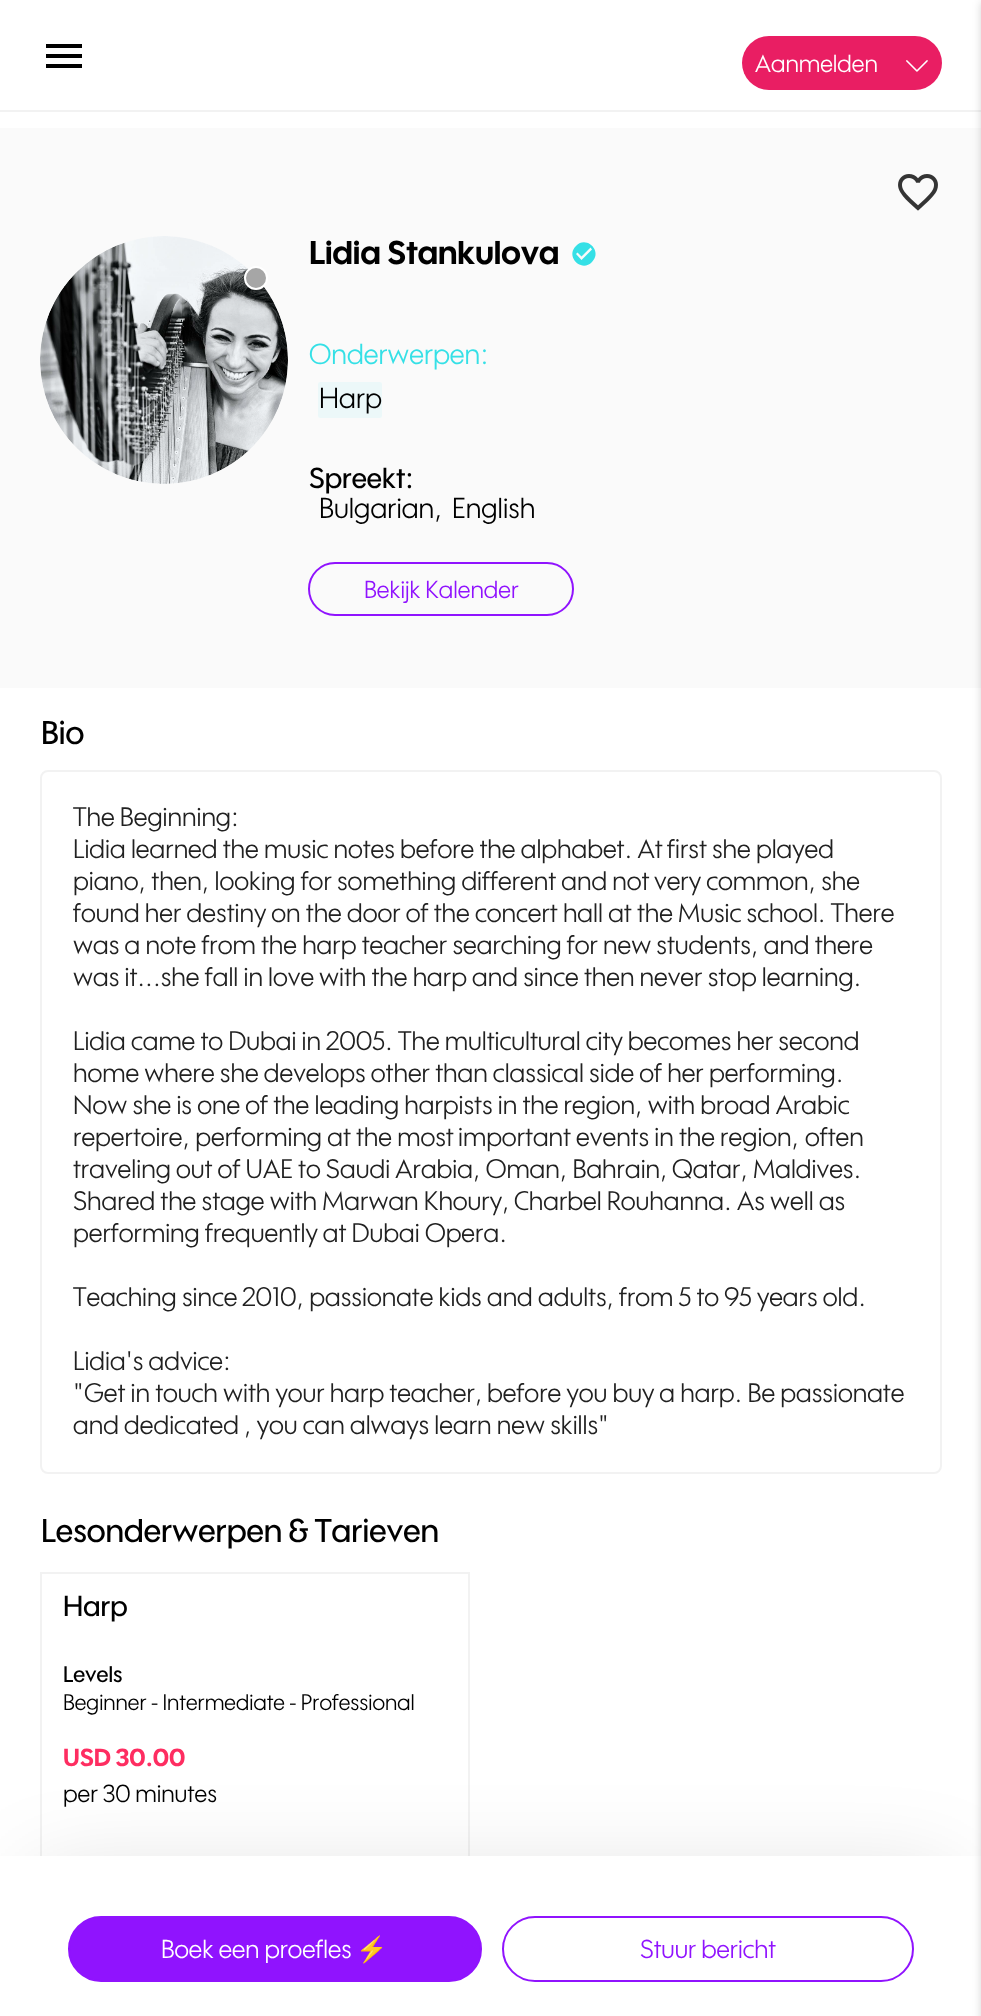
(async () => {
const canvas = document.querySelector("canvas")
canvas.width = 981
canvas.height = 2016
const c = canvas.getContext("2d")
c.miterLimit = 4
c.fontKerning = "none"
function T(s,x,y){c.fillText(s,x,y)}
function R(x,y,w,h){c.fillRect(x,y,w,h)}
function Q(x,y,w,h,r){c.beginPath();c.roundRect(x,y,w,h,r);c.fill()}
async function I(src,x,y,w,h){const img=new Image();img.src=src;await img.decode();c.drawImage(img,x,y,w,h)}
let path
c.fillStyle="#fff"
R(0,0,981,2016)
c.fillStyle="#f2f2f2"
R(0,110,981,2)
c.fillStyle="#000"
path = new Path2D("M46 44h36v4h-36zm0 14v-4h36v4zm0 10v-4h36v4z")
c.fill(path)
c.fillStyle="#e91e63"
Q(742,36,200,54,27)
c.font="24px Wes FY"
c.fillStyle="#fff"
T("Aanmelden",755,72)
await I("1.png",906,60,22,12)
c.fillStyle="#fafafa"
R(0,128,981,560)
c.strokeStyle="#f2f2f2"
c.lineWidth=2
c.strokeRect(41,1573,428,286)
c.fillStyle="#00000026"
c.filter="blur(47px)"
c.beginPath()
c.rect(36,1880,914,92)
c.fill()
c.filter="none"
c.fillStyle="#fff"
R(0,1856,981,160)
c.fillStyle="#00000033"
c.filter="blur(5px)"
c.beginPath()
c.rect(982,2,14,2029)
c.fill()
c.filter="none"
await I("2.png",898,174,40,37)
await I("3.png",40,236,248,248)
c.fillStyle="#a6a6a6"
c.beginPath()
c.arc(256,278,11,0,7)
c.fill()
c.strokeStyle="#fff"
c.stroke()
c.font="bold 32px Wes FY"
c.fillStyle="#000"
T("Lidia Stankulova",309,264)
c.fillStyle="#35e0e6"
path = new Path2D("M581.5 260l10.5-10.5l-1.5-2l-9 9l-4-4l-1.5 1.5zm-5.5-14c10.5-11 27 5.5 16 16c-10.5 11-27-5.5-16-16z")
c.fill(path)
c.font="28px Wes FY"
T("Onderwerpen:",309,364)
c.fillStyle="#ecf8f9"
Q(318,382,64,36,2)
c.fillStyle="#000"
T("Harp",319,408)
c.font="500 28px Wes FY"
T("Spreekt:",309,488)
c.font="28px Wes FY"
T("Bulgarian,",319,518)
T("English",452,518)
c.beginPath()
c.roundRect(309,563,264,52,26)
c.strokeStyle="#9013fe"
c.stroke()
c.font="24px Wes FY"
c.fillStyle="#9013fe"
T("Bekijk Kalender",364,598)
c.font="500 32px Wes FY"
c.fillStyle="#000"
T("Bio",41,744)
c.beginPath()
c.roundRect(41,771,900,702,7)
c.strokeStyle="#f2f2f2"
c.stroke()
c.font="26px Wes FY"
c.fillStyle="#212121"
T("The Beginning:",73,826)
T("Lidia learned the music notes before the alphabet. At",73,858)
T("first she played",667,858)
T("piano, then, looking for something different and not",73,890)
T("very common, she",654,890)
T("found her destiny on the door of the concert hall at the Music school. There",73,922)
T("was a note from the harp teacher searching for",73,954)
T("new students, and there",603,954)
T("was it...she fall in love",73,986)
T("with the harp and since then never stop learning.",319,986)
T("Lidia came to Dubai in 2005. The multicultural city becomes her second",73,1050)
T("home where she develops other than classical side of her performing.",73,1082)
T("Now she is one of the leading harpists in the region, with broad Arabic",73,1114)
T("repertoire, performing at the most",73,1146)
T("important events in the region,",458,1146)
T("often",805,1146)
T("traveling out of UAE to Saudi Arabia, Oman, Bahrain,",73,1178)
T("Qatar, Maldives.",672,1178)
T("Shared the stage with Marwan Khoury,",73,1210)
T("Charbel Rouhanna. As well as",514,1210)
T("performing frequently at Dubai Opera.",73,1242)
T("Teaching since 2010, passionate kids and adults,",73,1306)
T("from 5 to 95 years old.",619,1306)
T("Lidia's advice:",73,1370)
T("\"Get in touch with your harp teacher,",73,1402)
T("before you buy a harp. Be passionate",487,1402)
T("and dedicated , you can always learn new skills\"",73,1434)
c.font="500 32px Wes FY"
c.fillStyle="#000"
T("Lesonderwerpen & Tarieven",41,1542)
c.font="500 28px Wes FY"
T("Harp",63,1616)
c.font="500 22px Wes FY"
T("Levels",63,1682)
c.font="22px Wes FY"
T("Beginner - Intermediate - Professional",63,1710)
c.font="bold 24px Wes FY"
c.fillStyle="#fe2d61"
T("USD 30.00",63,1766)
c.font="24px Wes FY"
c.fillStyle="#000"
T("per 30 minutes",63,1802)
c.fillStyle="#9013fe"
c.beginPath()
c.roundRect(69,1917,412,64,32)
c.fill()
c.strokeStyle="#9013fe"
c.stroke()
c.font="25.25px Wes FY"
c.fillStyle="#fff"
T("Boek een proefles",161,1958)
c.font="25.25px Noto Color Emoji"
T("⚡",356,1958)
c.beginPath()
c.roundRect(503,1917,410,64,32)
c.stroke()
c.font="25.25px Wes FY"
c.fillStyle="#9013fe"
T("Stuur bericht",640,1958)
})()
